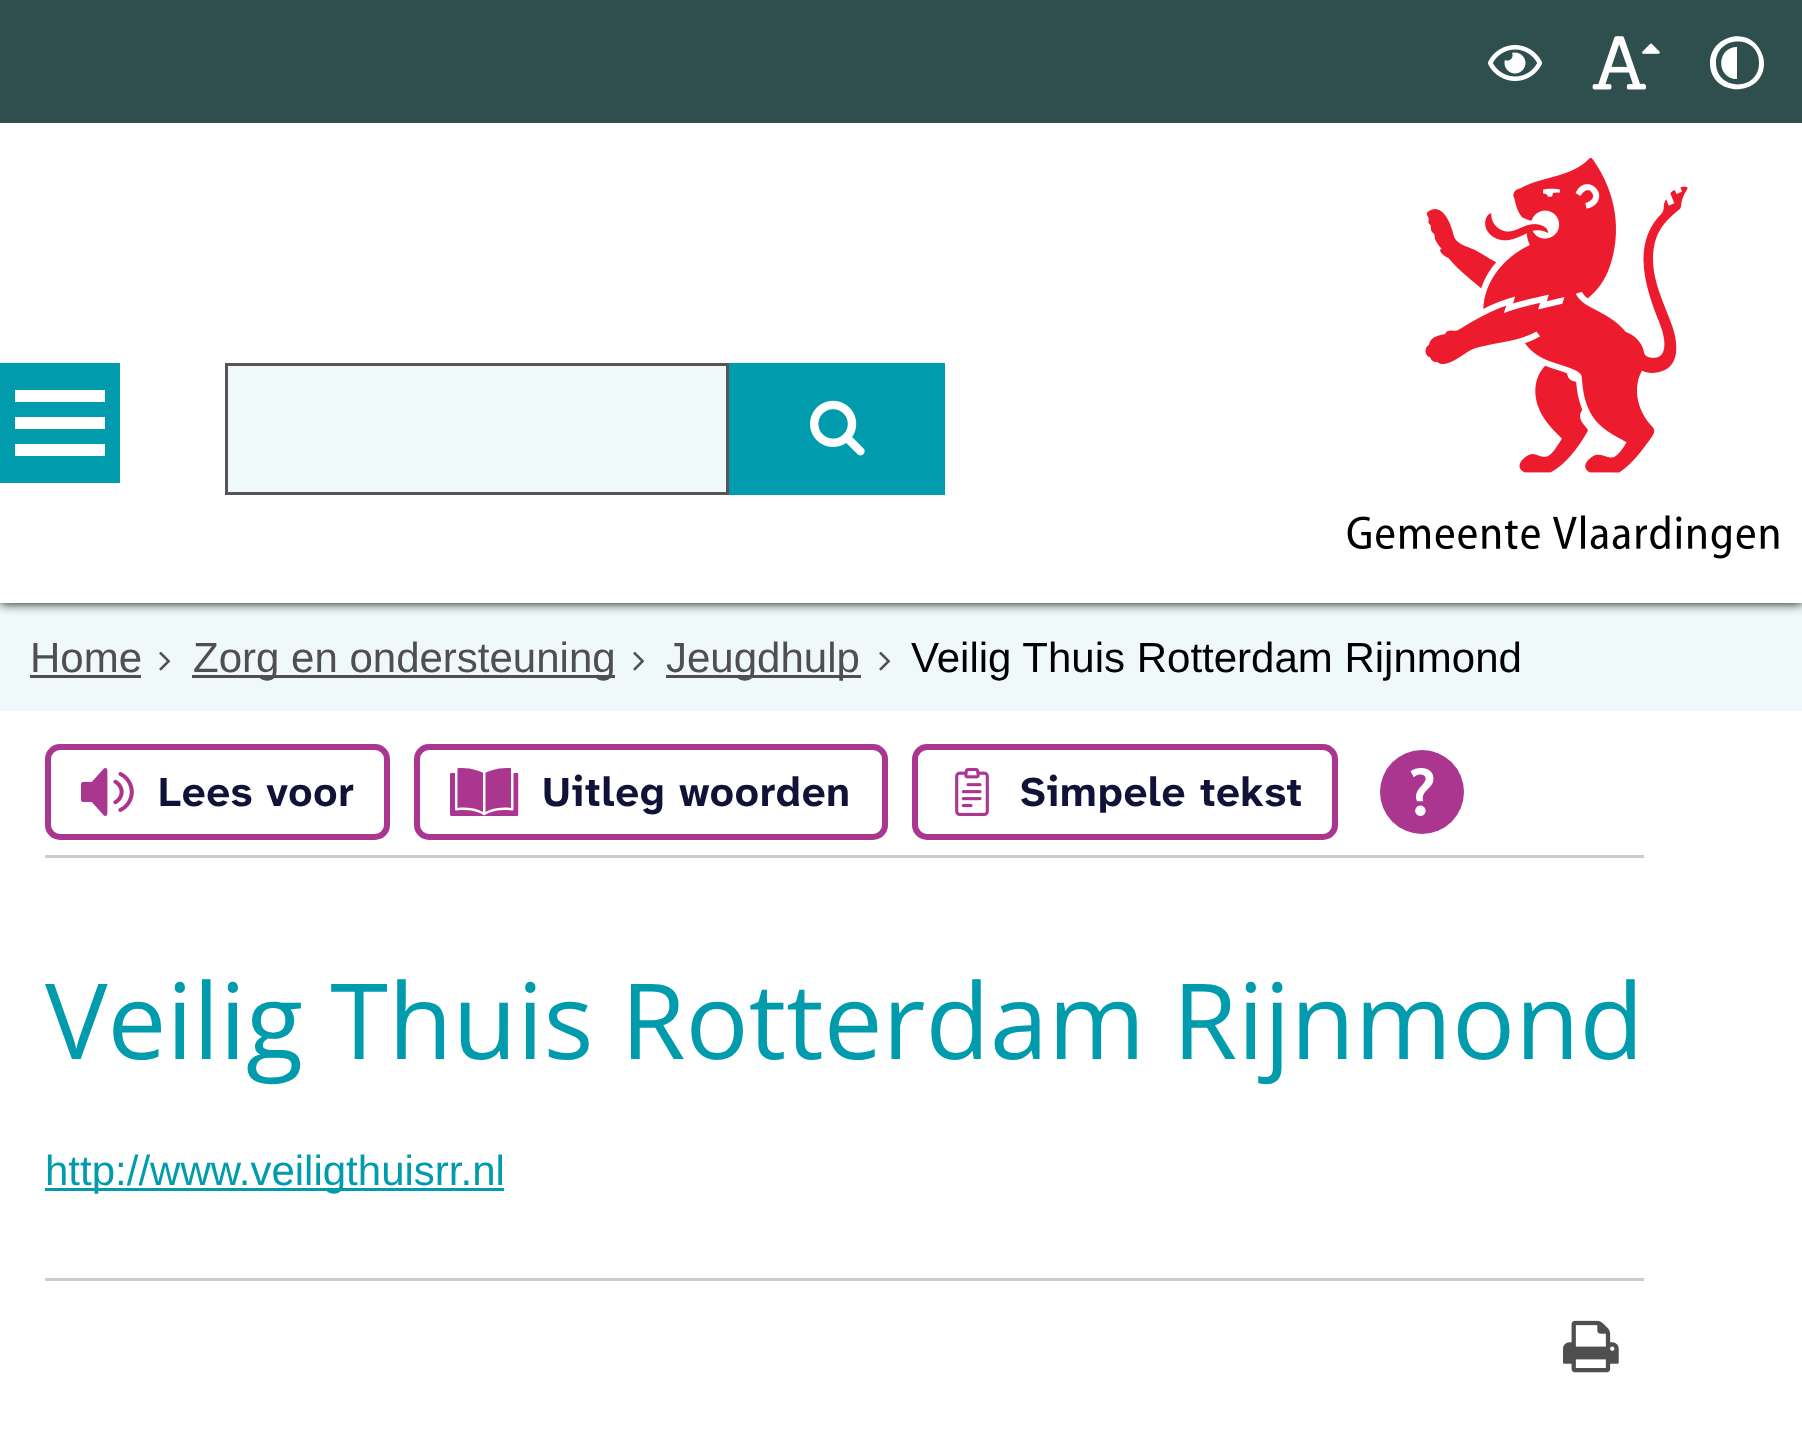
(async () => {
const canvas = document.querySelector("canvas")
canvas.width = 1802
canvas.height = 1432
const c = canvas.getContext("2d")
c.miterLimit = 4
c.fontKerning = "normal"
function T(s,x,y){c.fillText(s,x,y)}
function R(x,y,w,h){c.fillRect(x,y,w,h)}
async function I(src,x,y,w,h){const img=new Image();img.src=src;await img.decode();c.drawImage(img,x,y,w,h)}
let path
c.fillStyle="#fff"
R(0,0,1802,1432)
c.fillStyle="#eff9fa"
R(0,603,1802,108)
c.save()
c.beginPath()
c.rect(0,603,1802,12)
c.clip()
c.fillStyle="#000"
c.filter="blur(6px)"
c.beginPath()
c.rect(0,0,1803,603)
c.fill()
c.filter="none"
c.restore()
c.fillStyle="#2f4f4f"
R(0,0,1802,123)
await I("1.png",1488,45,54,36)
await I("2.png",1592,36,68,54)
c.fillStyle="#fff"
path = new Path2D("M1764 63c0 35-54 35-54 0c0-26 35-37 49-15c3 5 5 10 5 15zm-48 0c0 28 43 29 43 0c0-29-43-28-43 0zm21 16c-21 0-21-32 0-32z")
c.fill(path)
c.fillStyle="#eff9fa"
c.beginPath()
c.rect(226.5,364.5,501,129)
c.fill()
c.strokeStyle="#555"
c.lineWidth=3
c.stroke()
c.fillStyle="#009bac"
R(729,363,216,132)
await I("3.png",810,400,55,56)
await I("4.png",1347,157,432,402)
R(0,363,120,120)
c.fillStyle="#fff"
R(15,444,90,12)
R(15,417,90,12)
R(15,390,90,12)
c.font="42px Liberation Sans"
c.fillStyle="#4f4f4f"
T("Home",30,672)
R(30,675,111,3)
await I("5.png",159,651,12,20)
R(192,675,423,3)
T("Zorg en ondersteuning",193,672)
await I("5.png",633,651,12,20)
R(666,675,195,3)
T("Jeugdhulp",666,672)
await I("5.png",879,651,12,20)
c.fillStyle="#000"
T("Veilig Thuis Rotterdam Rijnmond",911,672)
c.fillStyle="#ccc"
R(45,855,1599,3)
c.beginPath()
c.roundRect(48,747,339,90,12)
c.strokeStyle="#ab3690"
c.lineWidth=6
c.stroke()
await I("6.png",81,768,53,48)
c.letterSpacing="0.8px"
c.font="bold 42px Atkinson Hyperlegible Next"
c.fillStyle="#101237"
T("Lees voor",158,806)
c.beginPath()
c.roundRect(417,747,468,90,12)
c.stroke()
await I("7.png",450,768,69,48)
T("Uitleg woorden",542,806)
c.beginPath()
c.roundRect(915,747,420,90,12)
c.stroke()
await I("8.png",955,768,34,48)
T("Simpele tekst",1020,806)
c.fillStyle="#ab3690"
c.beginPath()
c.arc(1422,792,42,0,7)
c.fill()
await I("9.png",1410,768,24,48)
c.letterSpacing="0px"
c.font="105px Open Sans"
c.fillStyle="#009bac"
T("Veilig Thuis Rotterdam Rijnmond",45,1059)
R(45,1188,459,3)
c.font="42px Liberation Sans"
T("http://www.veiligthuisrr.nl",45,1185)
c.fillStyle="#ccc"
R(45,1278,1599,3)
await I("10.png",1563,1320,56,53)
})()
